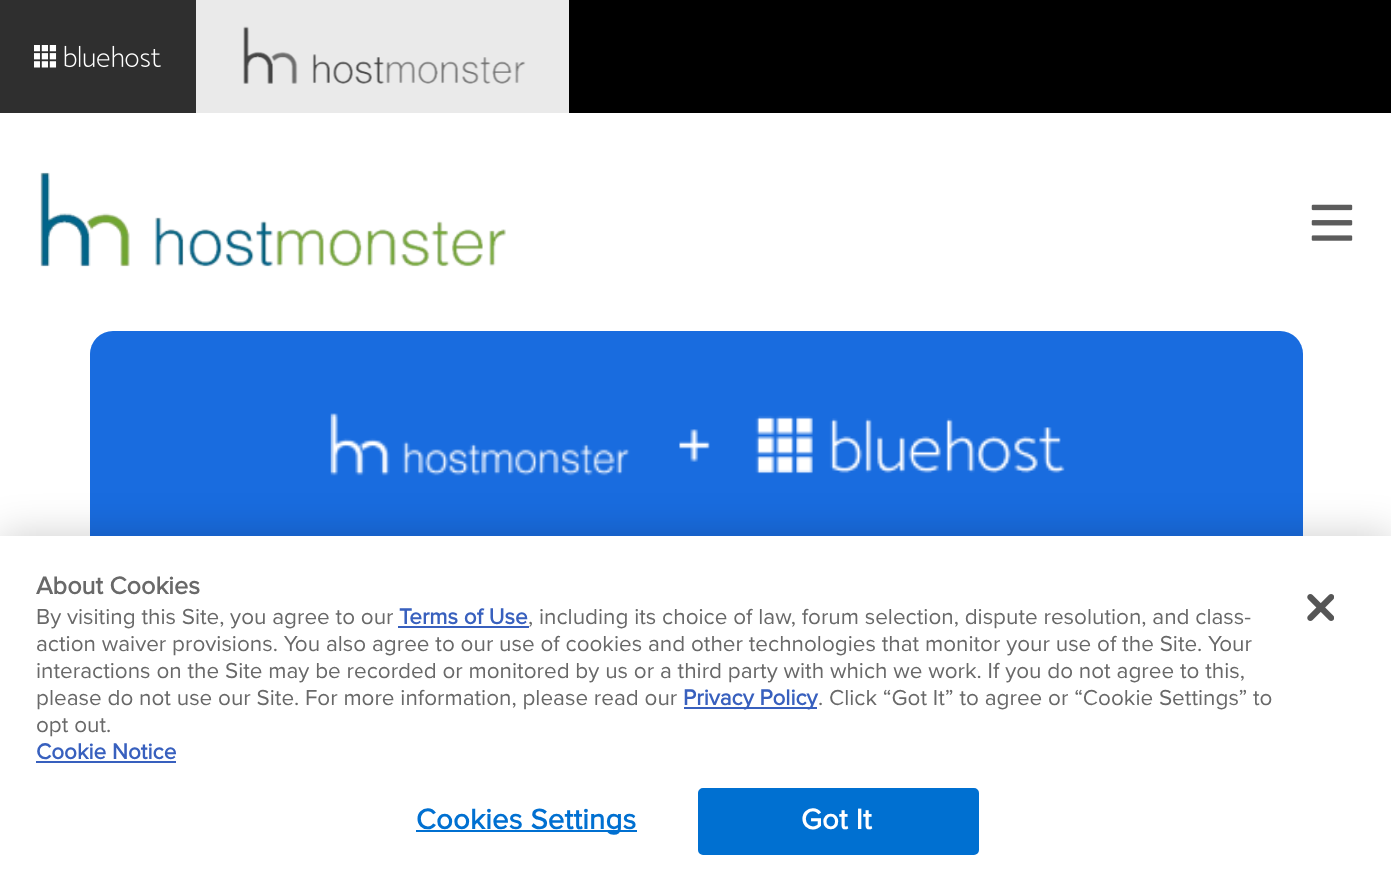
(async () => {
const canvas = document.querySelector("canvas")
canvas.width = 1391
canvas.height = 872
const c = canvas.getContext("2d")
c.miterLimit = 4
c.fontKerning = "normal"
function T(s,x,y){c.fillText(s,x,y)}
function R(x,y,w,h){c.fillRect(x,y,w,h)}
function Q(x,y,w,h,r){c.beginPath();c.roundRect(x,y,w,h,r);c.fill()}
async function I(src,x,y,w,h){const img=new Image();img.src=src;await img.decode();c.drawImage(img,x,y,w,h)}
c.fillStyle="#fff"
R(0,0,1391,872)
c.fillStyle="#000"
R(569,0,822,113)
c.fillStyle="#2f2f2f"
R(0,0,196,113)
await I("1.png",34,45,127,23)
c.fillStyle="#eaeaea"
R(196,0,373,113)
await I("2.png",243,26,283,58)
await I("3.png",40,172,466,95)
await I("4.png",1311,204,42,37)
c.fillStyle="#196cdf"
Q(90,331,1213,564,23)
await I("5.png",330,413,735,63)
c.fillStyle="#00000033"
c.filter="blur(20px)"
c.beginPath()
c.rect(0,536,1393,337)
c.fill()
c.filter="none"
c.fillStyle="#fff"
R(0,536,1391,336)
c.font="bold 25.25px Proxima Nova"
c.fillStyle="#696969"
T("About Cookies",36,594)
c.font="22.5px Proxima Nova"
T("By visiting this Site, you agree to our",36,624)
c.font="bold 22.5px Proxima Nova"
c.fillStyle="#3860be"
T("Terms of Use",399,624)
R(398,626,131,2)
c.font="22.5px Proxima Nova"
c.fillStyle="#696969"
T(", including its choice of law, forum selection, dispute resolution, and class-",528,624)
T("action waiver provisions. You also agree to our use of cookies and other technologies that monitor your use of the Site. Your",36,651)
T("interactions on the Site may be recorded or monitored by us or a third party with which we work. If you do not agree to this,",36,678)
T("please do not use our Site. For more information, please read our",36,705)
c.fillStyle="#3860be"
R(684,707,133,2)
c.font="bold 22.5px Proxima Nova"
T("Privacy Policy",683,705)
c.font="22.5px Proxima Nova"
c.fillStyle="#696969"
T(". Click “Got It” to agree or “Cookie Settings” to",818,705)
T("opt out.",36,732)
c.font="bold 22.5px Proxima Nova"
c.fillStyle="#3860be"
T("Cookie Notice",36,759)
R(36,761,140,2)
c.fillStyle="#0070d1"
R(416,830,221,2)
c.letterSpacing="0.25px"
c.font="bold 29.25px Proxima Nova"
T("Cookies Settings",416,829)
c.beginPath()
c.roundRect(699,789,279,65,4)
c.fill()
c.strokeStyle="#0070d1"
c.lineWidth=2
c.stroke()
c.fillStyle="#fff"
T("Got It",801,829)
await I("6.png",1307,594,27,27)
})()
